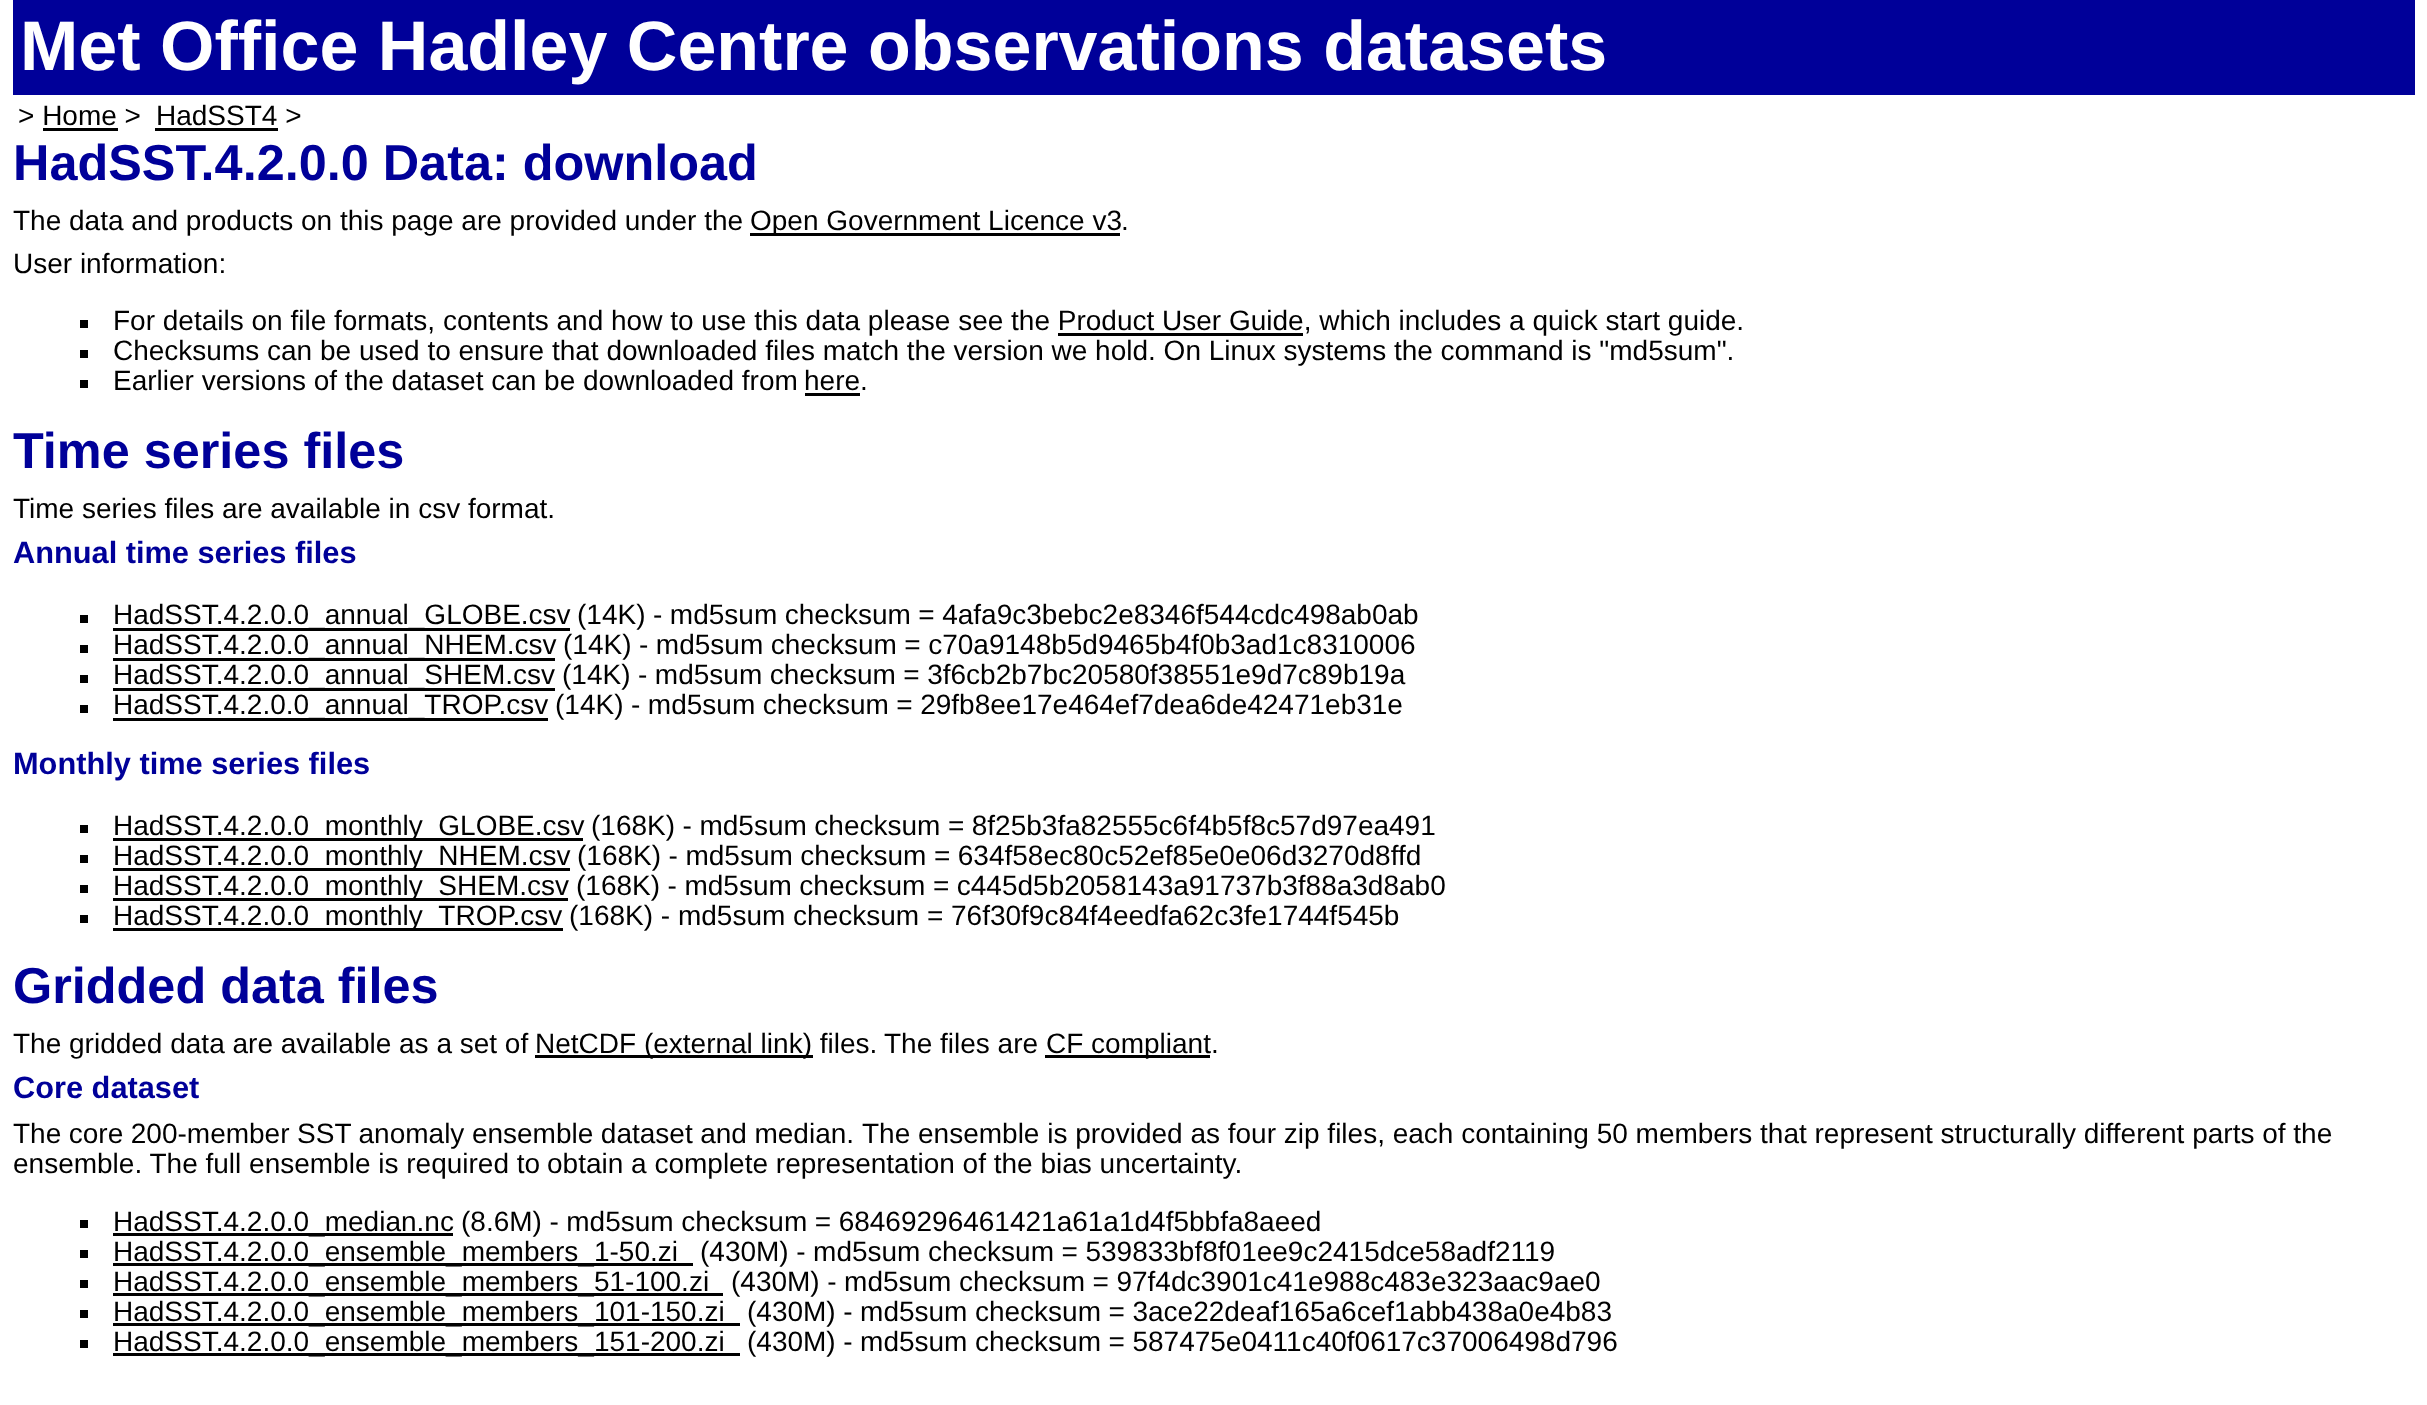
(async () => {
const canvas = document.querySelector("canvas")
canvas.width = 2427
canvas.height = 1405
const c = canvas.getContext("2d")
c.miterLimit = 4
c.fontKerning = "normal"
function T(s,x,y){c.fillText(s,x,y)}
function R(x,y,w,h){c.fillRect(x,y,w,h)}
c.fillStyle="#fff"
R(0,0,2427,1405)
c.fillStyle="#009"
R(13,0,2402,95)
c.font="bold 70px Liberation Sans"
c.fillStyle="#fff"
T("Met Office Hadley Centre observations datasets",20,70)
c.font="28px Liberation Sans"
c.fillStyle="#000"
T("> Home >",18,125)
T("HadSST4 >",156,125)
R(155,128,123,3)
R(43,128,75,3)
c.font="bold 50.4px Liberation Sans"
c.fillStyle="#009"
T("HadSST.4.2.0.0 Data: download",13,180)
c.font="28px Liberation Sans"
c.fillStyle="#000"
T("The data and products on this page are provided under the",13,230)
R(750,233,370,3)
T("Open Government Licence v3",750,230)
T(".",1121,230)
T("User information:",13,273)
R(80,320,8,8)
T("For details on file formats, contents and how to use this data please see the Product User Guide, which includes a quick start guide.",113,330)
R(1058,333,245,3)
R(80,350,8,8)
T("Checksums can be used to ensure that downloaded files match the version we hold. On Linux systems the command is \"md5sum\".",113,360)
R(80,380,8,8)
T("Earlier versions of the dataset can be downloaded from",113,390)
T("here.",804,390)
R(805,393,55,3)
c.font="bold 50.4px Liberation Sans"
c.fillStyle="#009"
T("Time series files",13,468)
c.font="28px Liberation Sans"
c.fillStyle="#000"
T("Time series files are available in csv format.",13,518)
c.font="bold 30.75px Liberation Sans"
c.fillStyle="#009"
T("Annual time series files",13,563)
c.fillStyle="#000"
R(80,615,8,8)
R(113,628,457,3)
c.font="28px Liberation Sans"
T("HadSST.4.2.0.0_annual_GLOBE.csv",113,624)
c.wordSpacing="-0.25px"
T("(14K) - md5sum checksum = 4afa9c3bebc2e8346f544cdc498ab0ab",577,624)
R(80,645,8,8)
R(113,658,442,3)
c.wordSpacing="0px"
T("HadSST.4.2.0.0_annual_NHEM.csv",113,654)
c.wordSpacing="-0.25px"
T("(14K) - md5sum checksum = c70a9148b5d9465b4f0b3ad1c8310006",563,654)
R(80,675,8,8)
R(113,688,442,3)
c.wordSpacing="0px"
T("HadSST.4.2.0.0_annual_SHEM.csv",113,684)
c.wordSpacing="-0.25px"
T("(14K) - md5sum checksum = 3f6cb2b7bc20580f38551e9d7c89b19a",562,684)
R(80,705,8,8)
R(113,718,435,3)
c.wordSpacing="0px"
T("HadSST.4.2.0.0_annual_TROP.csv",113,714)
c.wordSpacing="-0.25px"
T("(14K) - md5sum checksum = 29fb8ee17e464ef7dea6de42471eb31e",555,714)
c.wordSpacing="0px"
c.font="bold 30.75px Liberation Sans"
c.fillStyle="#009"
T("Monthly time series files",13,774)
c.fillStyle="#000"
R(80,825,8,8)
R(113,838,470,3)
c.font="28px Liberation Sans"
T("HadSST.4.2.0.0_monthly_GLOBE.csv",113,835)
c.wordSpacing="-0.25px"
T("(168K) - md5sum checksum = 8f25b3fa82555c6f4b5f8c57d97ea491",591,835)
R(80,855,8,8)
R(113,868,457,3)
c.wordSpacing="0px"
T("HadSST.4.2.0.0_monthly_NHEM.csv",113,865)
c.wordSpacing="-0.25px"
T("(168K) - md5sum checksum = 634f58ec80c52ef85e0e06d3270d8ffd",577,865)
R(80,885,8,8)
R(113,898,455,3)
c.wordSpacing="0px"
T("HadSST.4.2.0.0_monthly_SHEM.csv",113,895)
c.wordSpacing="-0.25px"
T("(168K) - md5sum checksum = c445d5b2058143a91737b3f88a3d8ab0",576,895)
R(80,915,8,8)
R(113,928,450,3)
c.wordSpacing="0px"
T("HadSST.4.2.0.0_monthly_TROP.csv",113,925)
T("(168K) - md5sum checksum = 76f30f9c84f4eedfa62c3fe1744f545b",569,925)
c.font="bold 50.4px Liberation Sans"
c.fillStyle="#009"
T("Gridded data files",13,1003)
c.font="28px Liberation Sans"
c.fillStyle="#000"
T("The gridded data are available as a set of",13,1053)
R(535,1055,278,3)
T("NetCDF (external link) files.",535,1053)
T("The files are",884,1053)
R(1045,1055,165,3)
T("CF compliant.",1046,1053)
c.font="bold 30.75px Liberation Sans"
c.fillStyle="#009"
T("Core dataset",13,1098)
c.wordSpacing="-0.25px"
c.font="28px Liberation Sans"
c.fillStyle="#000"
T("The core 200-member SST anomaly ensemble dataset and median.",13,1143)
c.wordSpacing="0px"
T("The ensemble is provided as four zip files, each containing 50 members that represent structurally different parts of the",862,1143)
T("ensemble. The full ensemble is required to",13,1173)
T("obtain a complete representation of the bias uncertainty.",547,1173)
R(80,1220,8,8)
R(113,1233,340,3)
T("HadSST.4.2.0.0_median.nc",113,1231)
c.wordSpacing="-0.25px"
T("(8.6M) - md5sum checksum = 68469296461421a61a1d4f5bbfa8aeed",461,1231)
R(80,1250,8,8)
R(113,1263,580,3)
c.wordSpacing="0px"
T("HadSST.4.2.0.0_ensemble_members_1-50.zi",113,1261)
c.wordSpacing="-0.25px"
T("(430M) - md5sum checksum = 539833bf8f01ee9c2415dce58adf2119",700,1261)
R(80,1280,8,8)
R(113,1293,610,3)
c.wordSpacing="0px"
T("HadSST.4.2.0.0_ensemble_members_51-100.zi",113,1291)
c.wordSpacing="-0.25px"
T("(430M) - md5sum checksum = 97f4dc3901c41e988c483e323aac9ae0",731,1291)
R(80,1310,8,8)
R(113,1323,627,3)
c.wordSpacing="0px"
T("HadSST.4.2.0.0_ensemble_members_101-150.zi",113,1321)
c.wordSpacing="-0.25px"
T("(430M) - md5sum checksum = 3ace22deaf165a6cef1abb438a0e4b83",747,1321)
R(80,1340,8,8)
R(113,1353,627,3)
c.wordSpacing="0px"
T("HadSST.4.2.0.0_ensemble_members_151-200.zi",113,1351)
c.wordSpacing="-0.25px"
T("(430M) - md5sum checksum = 587475e0411c40f0617c37006498d796",747,1351)
})()
